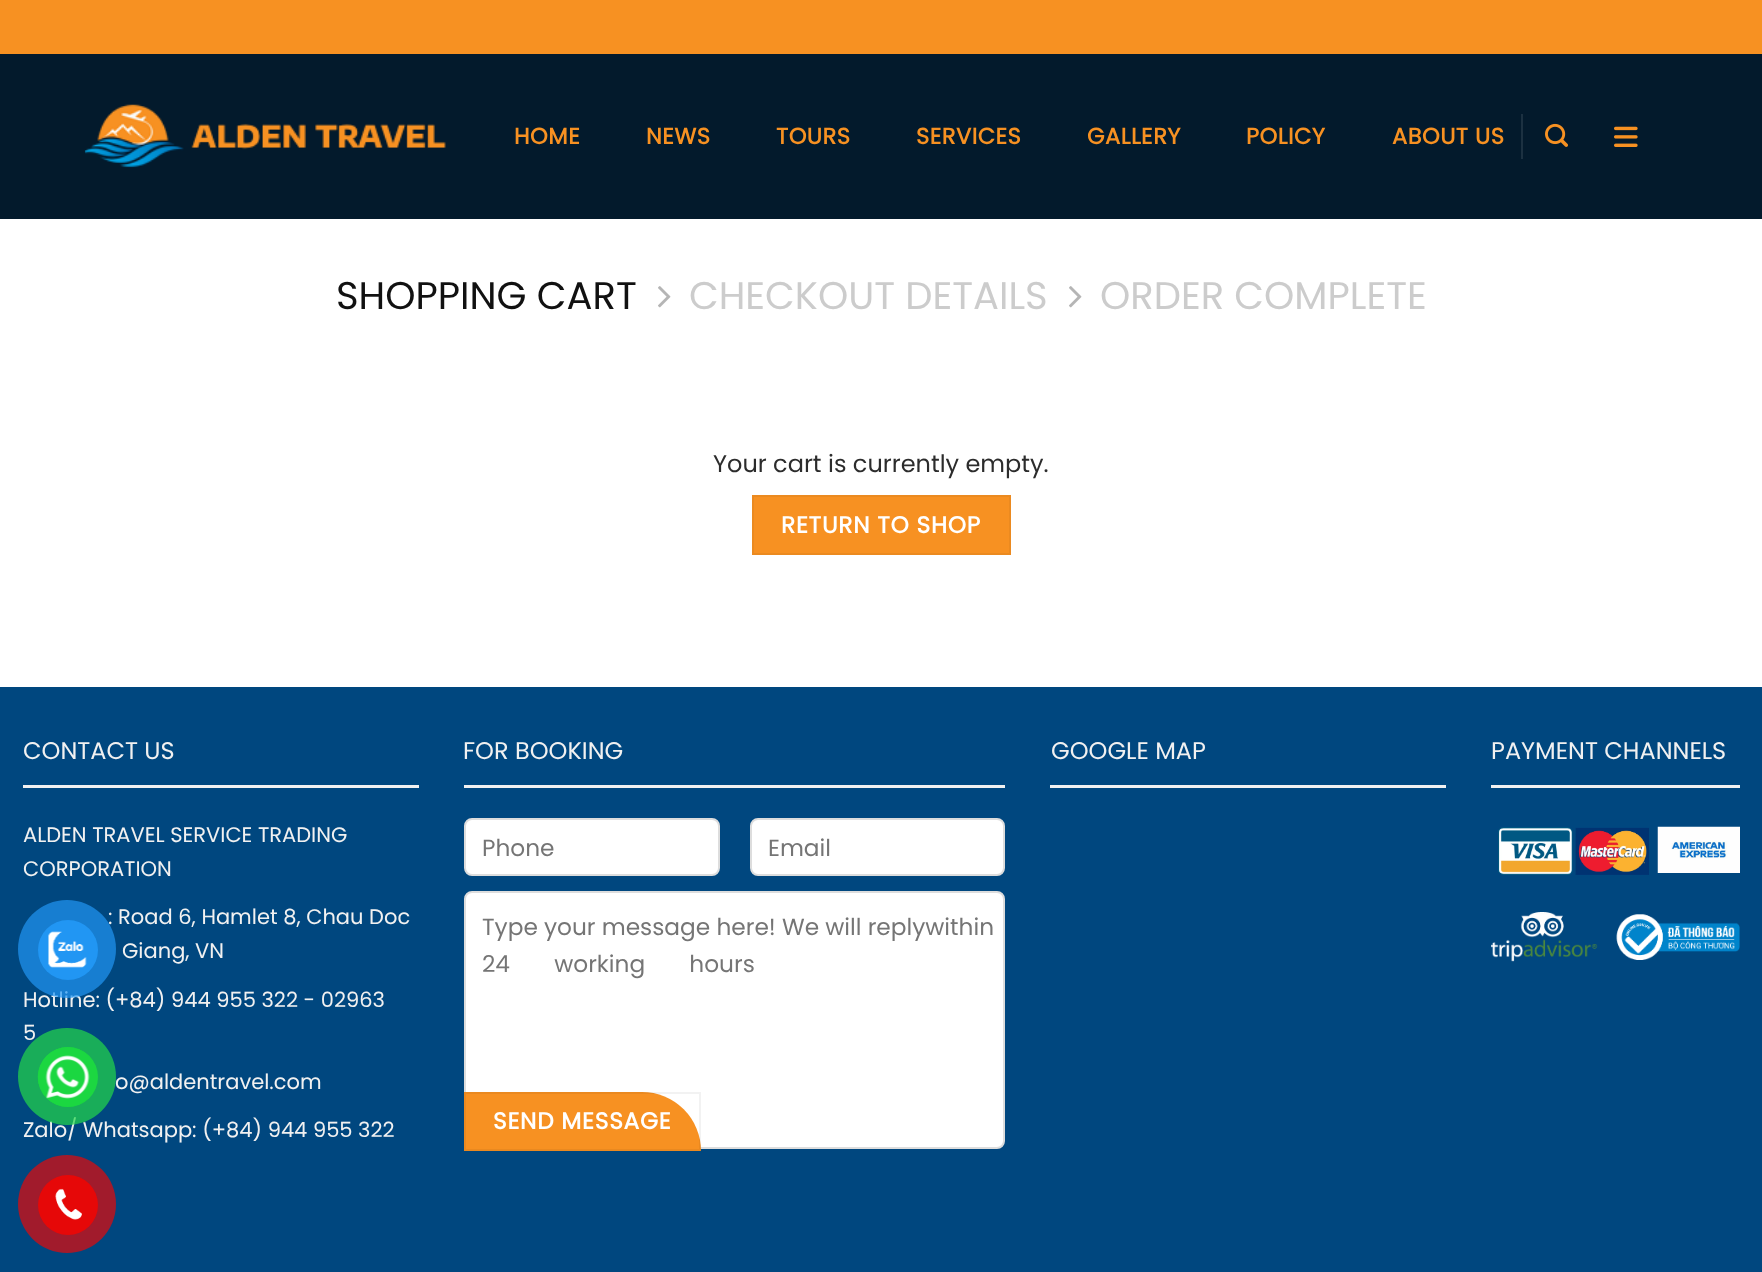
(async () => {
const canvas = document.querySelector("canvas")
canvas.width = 1762
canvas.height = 1272
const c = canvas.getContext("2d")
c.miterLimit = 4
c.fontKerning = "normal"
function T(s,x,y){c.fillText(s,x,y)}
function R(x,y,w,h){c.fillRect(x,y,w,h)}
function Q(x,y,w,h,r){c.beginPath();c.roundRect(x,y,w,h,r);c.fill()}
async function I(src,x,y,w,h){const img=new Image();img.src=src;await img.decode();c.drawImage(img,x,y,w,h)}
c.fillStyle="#fff"
R(0,0,1762,1272)
c.fillStyle="#f79122"
R(0,0,1762,54)
c.fillStyle="#031a2c"
R(0,54,1762,165)
await I("1.png",84,104,362,64)
c.letterSpacing="0.5px"
c.font="bold 22.5px Poppins"
c.fillStyle="#f79122"
T("HOME",514,144)
T("NEWS",646,144)
T("TOURS",776,144)
T("SERVICES",916,144)
T("GALLERY",1087,144)
T("POLICY",1246,144)
T("ABOUT US",1392,144)
c.fillStyle="#1c3141"
R(1521,114,2,45)
await I("2.png",1545,123,23,24)
await I("3.png",1614,126,24,21)
c.letterSpacing="0px"
c.font="38.5px Poppins"
c.fillStyle="#111"
T("SHOPPING CART",336,309)
await I("4.png",658,286,13,22)
c.fillStyle="#ccc"
T("CHECKOUT DETAILS",689,309)
await I("4.png",1069,286,13,22)
T("ORDER COMPLETE",1100,309)
c.font="24px Poppins"
c.fillStyle="#2c2c2c"
T("Your cart is currently empty.",713,472)
c.fillStyle="#f79122"
c.beginPath()
c.rect(753,496,257,58)
c.fill()
c.strokeStyle="#eb8a20"
c.lineWidth=2
c.stroke()
c.letterSpacing="0.75px"
c.font="bold 23.25px Poppins"
c.fillStyle="#fff"
T("RETURN TO SHOP",781,533)
c.fillStyle="#00477f"
R(0,687,1762,585)
c.fillStyle="#f1f1f1"
R(23,785,396,3)
c.letterSpacing="0px"
c.font="24px Poppins"
T("CONTACT US",23,759)
c.font="21px Poppins"
T("ALDEN TRAVEL SERVICE TRADING",23,842)
T("CORPORATION",23,876)
T(": Road 6, Hamlet 8, Chau Doc",108,924)
T("Giang, VN",122,958)
T("Hotline: (+84) 944 955 322 - 02963",23,1007)
T("5",23,1040)
T("o@aldentravel.com",115,1089)
T("Zalo/ Whatsapp: (+84) 944 955 322",23,1137)
R(464,785,541,3)
c.font="24px Poppins"
T("FOR BOOKING",463,759)
c.fillStyle="#fff"
c.beginPath()
c.roundRect(465,819,254,56,7)
c.fill()
c.strokeStyle="#ddd"
c.stroke()
c.font="23.25px Poppins"
c.fillStyle="#757575"
T("Phone",482,856)
c.fillStyle="#fff"
c.beginPath()
c.roundRect(751,819,253,56,7)
c.fill()
c.stroke()
c.fillStyle="#757575"
T("Email",768,856)
c.fillStyle="#fff"
c.beginPath()
c.roundRect(465,892,539,256,7)
c.fill()
c.stroke()
c.fillStyle="#757575"
T("Type your message here! We will replywithin",482,935)
c.wordSpacing="38px"
T("24 working hours",482,972)
c.fillStyle="#f79122"
c.beginPath()
c.roundRect(464,1092,237,59,[0,59,0,0])
c.fill()
c.strokeStyle="#0000000d"
c.strokeRect(465,1093,235,57)
c.letterSpacing="0.75px"
c.wordSpacing="0px"
c.font="bold 23.25px Poppins"
c.fillStyle="#fff"
T("SEND MESSAGE",493,1129)
c.fillStyle="#f1f1f1"
R(1050,785,396,3)
c.letterSpacing="0px"
c.font="24px Poppins"
T("GOOGLE MAP",1051,759)
R(1491,785,249,3)
T("PAYMENT CHANNELS",1491,759)
await I("5.png",1498,827,151,48)
await I("6.png",1657,826,83,47)
await I("7.png",1491,912,107,50)
await I("8.png",1616,914,124,46)
c.fillStyle="#2196f3b3"
c.beginPath()
c.arc(67,949,49,0,7)
c.fill()
c.fillStyle="#2196f3"
c.beginPath()
c.arc(68,950,30,0,7)
c.fill()
await I("9.png",48,931,39,37)
c.fillStyle="#23d948b3"
Q(18,1028,98,97,48.5)
c.fillStyle="#1cd741"
c.beginPath()
c.arc(68,1077,30,0,7)
c.fill()
await I("10.png",37,1047,53,60)
c.fillStyle="#a11b2c"
c.beginPath()
c.arc(67,1204,49,0,7)
c.fill()
c.fillStyle="#e60808"
c.beginPath()
c.arc(68,1205,30,0,7)
c.fill()
await I("11.png",55,1188,27,32)
})()
